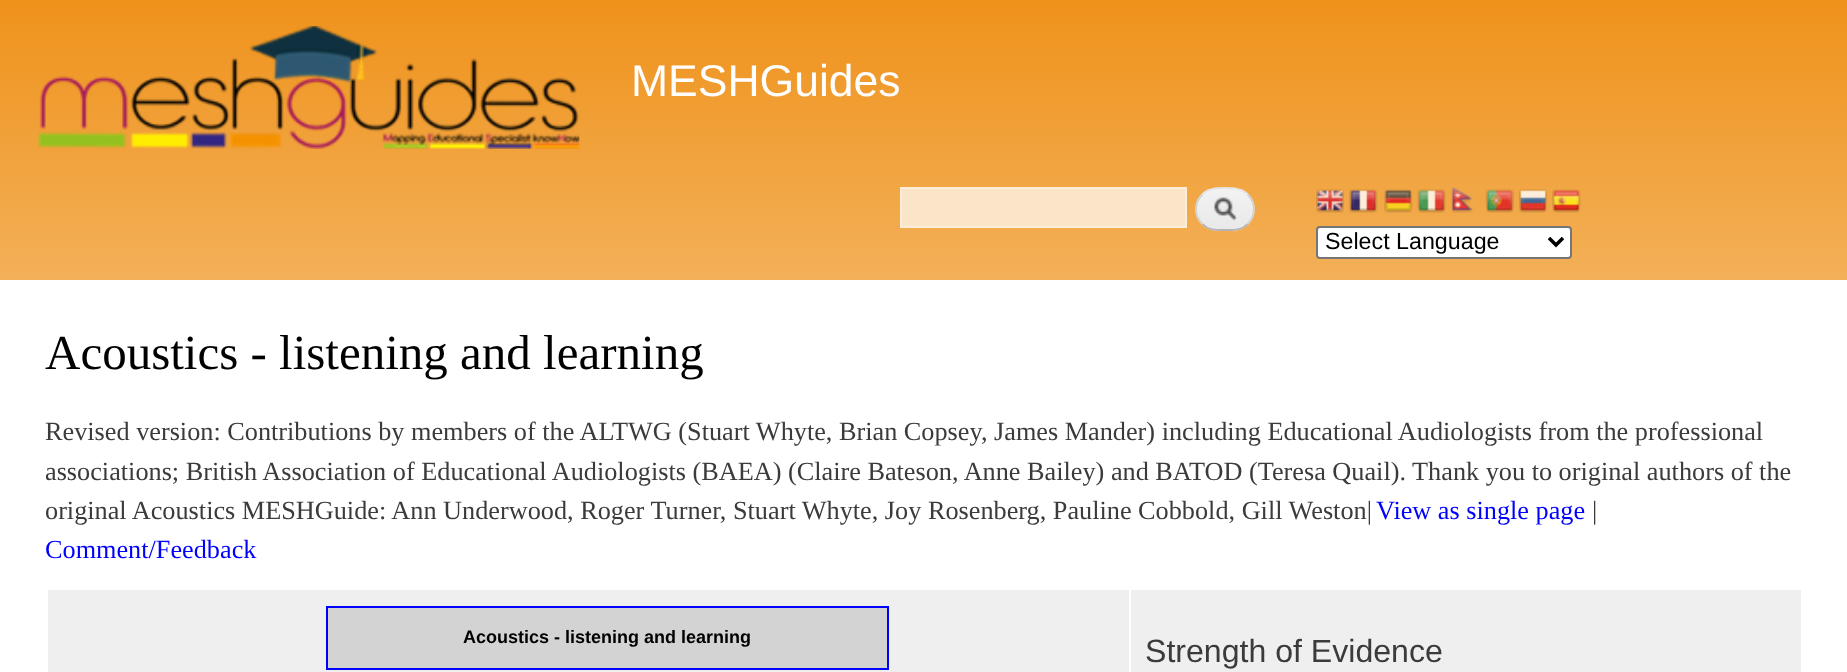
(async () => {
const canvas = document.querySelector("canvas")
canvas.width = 1847
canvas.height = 672
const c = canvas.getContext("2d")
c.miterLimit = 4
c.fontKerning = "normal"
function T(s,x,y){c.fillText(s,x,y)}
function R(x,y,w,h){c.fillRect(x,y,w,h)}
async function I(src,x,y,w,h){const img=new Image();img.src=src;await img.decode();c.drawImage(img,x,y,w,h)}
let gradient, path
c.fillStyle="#fff"
R(0,0,1847,672)
gradient = c.createLinearGradient(0,0,0,280)
gradient.addColorStop(0,"#ef921b")
gradient.addColorStop(1,"#f3b058")
c.fillStyle = gradient
R(0,0,1847,280)
gradient = c.createLinearGradient(0,0,0,280)
gradient.addColorStop(0,"#fadebb")
gradient.addColorStop(1,"#fbe7cd")
c.fillStyle = gradient
R(900,187,287,41)
await I("1.png",38,26,542,123)
c.font="44.5px Liberation Sans"
c.fillStyle="#fffeff"
T("MESHGuides",631,96)
c.strokeStyle="#ffffff4d"
c.lineWidth=2
c.strokeRect(901,188,285,39)
await I("2.png",1195,189,60,42)
path = new Path2D("M1202.5 194.5c6-6.5 14-6.5 22.5-6.5c8.5 0 16.5 0 22.5 6.5")
c.strokeStyle="#e4e4e4"
c.lineWidth=1.8
c.stroke(path)
path = new Path2D("M1247.5 194.5c8.5 8 8.5 21.5 0 29.5")
c.strokeStyle="#d2d2d2"
c.stroke(path)
path = new Path2D("M1247.5 224c-6 6.5-14 6-22.5 6c-8.5 0-16.5 .5-22.5-6")
c.strokeStyle="#b4b4b4"
c.stroke(path)
path = new Path2D("M1202.5 224c-8.5-8-8.5-21.5 0-29.5")
c.strokeStyle="#d2d2d2"
c.stroke(path)
await I("3.png",1316,189,28,24)
await I("4.png",1349,189,29,24)
await I("5.png",1384,189,29,24)
await I("6.png",1417,189,29,24)
await I("7.png",1451,187,22,26)
await I("8.png",1485,189,29,24)
await I("9.png",1519,189,28,24)
await I("10.png",1552,189,29,24)
c.fillStyle="#fff"
c.beginPath()
c.roundRect(1317,227,254,31,3)
c.fill()
c.strokeStyle="#767676"
c.lineWidth=2
c.stroke()
path = new Path2D("M1549 238l7 7l7-7")
c.strokeStyle="#000"
c.lineWidth=3.5
c.stroke(path)
c.font="23.25px Liberation Sans"
c.fillStyle="#000"
T("Select Language",1325,249)
c.font="49px Liberation Serif"
T("Acoustics - listening and learning",45,369)
c.font="26.25px Liberation Serif"
c.fillStyle="#3b3b3b"
T("Revised version: Contributions by members of the ALTWG (Stuart Whyte, Brian Copsey, James Mander) including Educational Audiologists from the professional",45,440)
T("associations; British Association of Educational Audiologists (BAEA) (Claire Bateson, Anne Bailey) and BATOD (Teresa Quail). Thank you to original authors of the",45,480)
T("original Acoustics MESHGuide: Ann Underwood, Roger Turner, Stuart Whyte, Joy Rosenberg, Pauline Cobbold, Gill Weston|",45,519)
c.fillStyle="#00f"
T("View as single page",1376,519)
c.fillStyle="#3b3b3b"
T("|",1592,519)
c.fillStyle="#00f"
T("Comment/Feedback",45,558)
c.fillStyle="#efefef"
R(48,590,1753,82)
c.fillStyle="#d3d3d3"
c.beginPath()
c.rect(327,607,561,62)
c.fill()
c.strokeStyle="#00f"
c.lineWidth=2
c.stroke()
c.font="bold 18px Liberation Sans"
c.fillStyle="#000"
T("Acoustics - listening and learning",463,643)
c.fillStyle="#fff"
R(1129,588,2,84)
c.font="32.1px Liberation Sans"
c.fillStyle="#3b3b3b"
T("Strength of Evidence",1145,662)
})()
